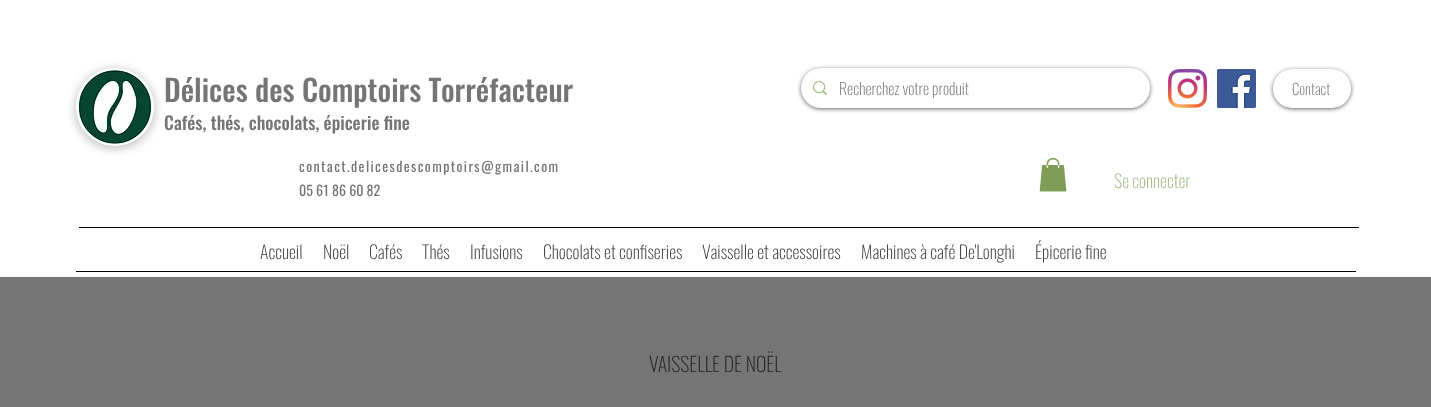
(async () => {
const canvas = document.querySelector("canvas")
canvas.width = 1431
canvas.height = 407
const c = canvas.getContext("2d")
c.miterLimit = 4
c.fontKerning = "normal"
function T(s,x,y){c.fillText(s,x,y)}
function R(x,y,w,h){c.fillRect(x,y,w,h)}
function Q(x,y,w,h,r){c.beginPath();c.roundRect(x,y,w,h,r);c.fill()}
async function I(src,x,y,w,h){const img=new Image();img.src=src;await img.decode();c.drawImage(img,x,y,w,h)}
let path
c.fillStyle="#fff"
R(0,0,1431,407)
c.fillStyle="#00000033"
c.filter="blur(4px)"
c.beginPath()
c.roundRect(74,68,82,82,41)
c.fill()
c.filter="none"
c.fillStyle="#fff"
c.beginPath()
c.arc(115,107,39,0,7)
c.fill()
await I("1.png",77,69,76,76)
c.font="500 30px Oswald"
c.fillStyle="#757575"
T("Délices des Comptoirs Torréfacteur",164,102)
c.font="500 18px Oswald"
T("Cafés, thés, chocolats, épicerie fine",164,130)
c.fillStyle="#00000099"
c.filter="blur(2px)"
c.beginPath()
c.roundRect(801,69,349,40,20)
c.fill()
c.filter="none"
c.fillStyle="#fff"
Q(801,68,349,40,20)
await I("2.png",813,81,14,14)
c.font="200 16px Oswald"
c.fillStyle="#757575"
T("Recherchez votre produit",839,95)
await I("3.png",1168,69,39,39)
await I("4.png",1217,69,39,39)
c.save()
path = new Path2D("M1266 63h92v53h-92zm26.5 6h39c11 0 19.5 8.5 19.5 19.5c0 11-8.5 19.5-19.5 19.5h-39c-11 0-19.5-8.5-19.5-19.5c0-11 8.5-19.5 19.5-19.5z")
c.clip(path,"evenodd")
c.fillStyle="#00000099"
c.filter="blur(2px)"
c.beginPath()
c.roundRect(1273,70,78,39,19.5)
c.fill()
c.filter="none"
c.restore()
c.font="200 15px Oswald"
T("Contact",1292,95)
c.letterSpacing="1.4px"
c.font="14px Oswald"
T("contact.delicesdescomptoirs@gmail.com",299,172)
c.letterSpacing="0px"
T("05 61 86 60 82",299,196)
await I("5.png",1039,158,28,34)
c.font="200 18px Oswald"
c.fillStyle="#a1b884"
T("Se connecter",1114,188)
c.fillStyle="#000"
R(79,227,1280,1)
c.fillStyle="#3b3b3b"
T("Accueil",260,259)
T("Noël",323,259)
T("Cafés",369,259)
T("Thés",422,259)
T("Infusions",470,259)
T("Chocolats et confiseries",543,259)
T("Vaisselle et accessoires",702,259)
T("Machines à café De'Longhi",861,259)
T("Épicerie fine",1035,259)
c.fillStyle="#000"
R(76,271,1280,1)
c.fillStyle="#757575"
R(0,277,1431,130)
c.font="200 20px Oswald"
c.fillStyle="#242323"
T("VAISSELLE DE NOËL",649,372)
})()
